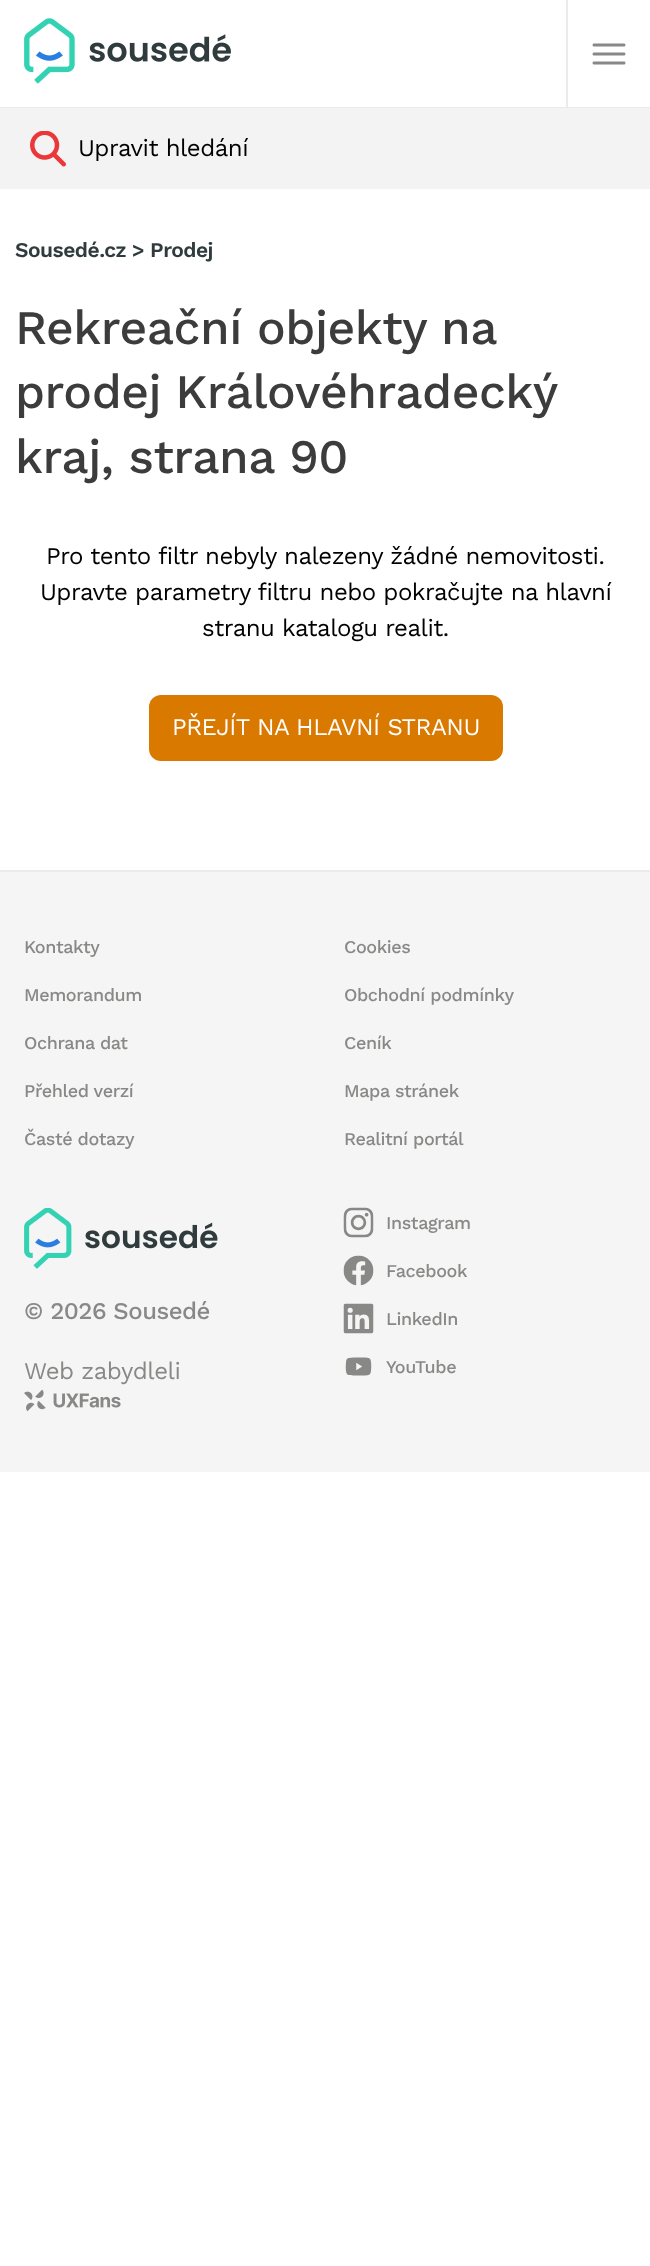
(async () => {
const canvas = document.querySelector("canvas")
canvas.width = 650
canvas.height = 2266
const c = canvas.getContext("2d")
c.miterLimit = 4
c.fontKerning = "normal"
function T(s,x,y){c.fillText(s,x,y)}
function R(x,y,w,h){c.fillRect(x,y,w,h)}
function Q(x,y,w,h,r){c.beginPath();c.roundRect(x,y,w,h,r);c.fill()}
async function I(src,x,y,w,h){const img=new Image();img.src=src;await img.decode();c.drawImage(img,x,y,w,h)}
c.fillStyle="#fff"
R(0,0,650,2266)
c.fillStyle="#ebebeb"
R(0,107,650,1)
await I("1.png",24,18,207,66)
R(566,0,2,107)
await I("2.png",592,43,34,22)
c.fillStyle="#f3f3f3"
R(0,108,650,81)
await I("3.png",30,131,36,36)
c.letterSpacing="-0.5px"
c.font="24px Work Sans"
c.fillStyle="#000"
T("Upravit hledání",78,156)
c.font="600 21px Work Sans"
c.fillStyle="#2f3b3c"
T("Sousedé.cz > Prodej",15,257)
c.font="500 48px Work Sans"
c.fillStyle="#3c3c3c"
T("Rekreační objekty na",15,344)
c.wordSpacing="-1px"
T("prodej Královéhradecký",15,408)
c.wordSpacing="0px"
T("kraj, strana 90",15,473)
c.font="24px Work Sans"
c.fillStyle="#000"
T("Pro tento filtr nebyly nalezeny žádné nemovitosti.",46,564)
T("Upravte parametry filtru nebo pokračujte na hlavní",40,600)
T("stranu katalogu realit.",202,636)
c.fillStyle="#da7900"
Q(149,695,354,66,12)
c.fillStyle="#fff"
T("PŘEJÍT NA HLAVNÍ STRANU",172,735)
c.fillStyle="#f5f5f5"
R(0,872,650,600)
c.fillStyle="#ebebeb"
R(0,870,650,2)
c.letterSpacing="-0.4px"
c.font="500 18px Work Sans"
c.fillStyle="#888887"
T("Kontakty",24,953)
T("Cookies",344,953)
T("Memorandum",24,1001)
T("Obchodní podmínky",344,1001)
T("Ochrana dat",24,1049)
T("Ceník",344,1049)
T("Přehled verzí",24,1097)
T("Mapa stránek",344,1097)
T("Časté dotazy",24,1145)
T("Realitní portál",344,1145)
await I("4.png",24,1208,194,61)
c.letterSpacing="-0.5px"
c.font="500 24px Work Sans"
T("© 2026 Sousedé",24,1319)
c.font="24px Work Sans"
T("Web zabydleli",24,1379)
await I("5.png",24,1389,97,23)
await I("6.png",343,1207,31,31)
c.letterSpacing="-0.4px"
c.font="500 18px Work Sans"
T("Instagram",386,1229)
await I("7.png",343,1255,31,31)
T("Facebook",386,1277)
await I("8.png",343,1303,31,31)
T("LinkedIn",386,1325)
await I("9.png",345,1357,27,19)
T("YouTube",386,1373)
})()
